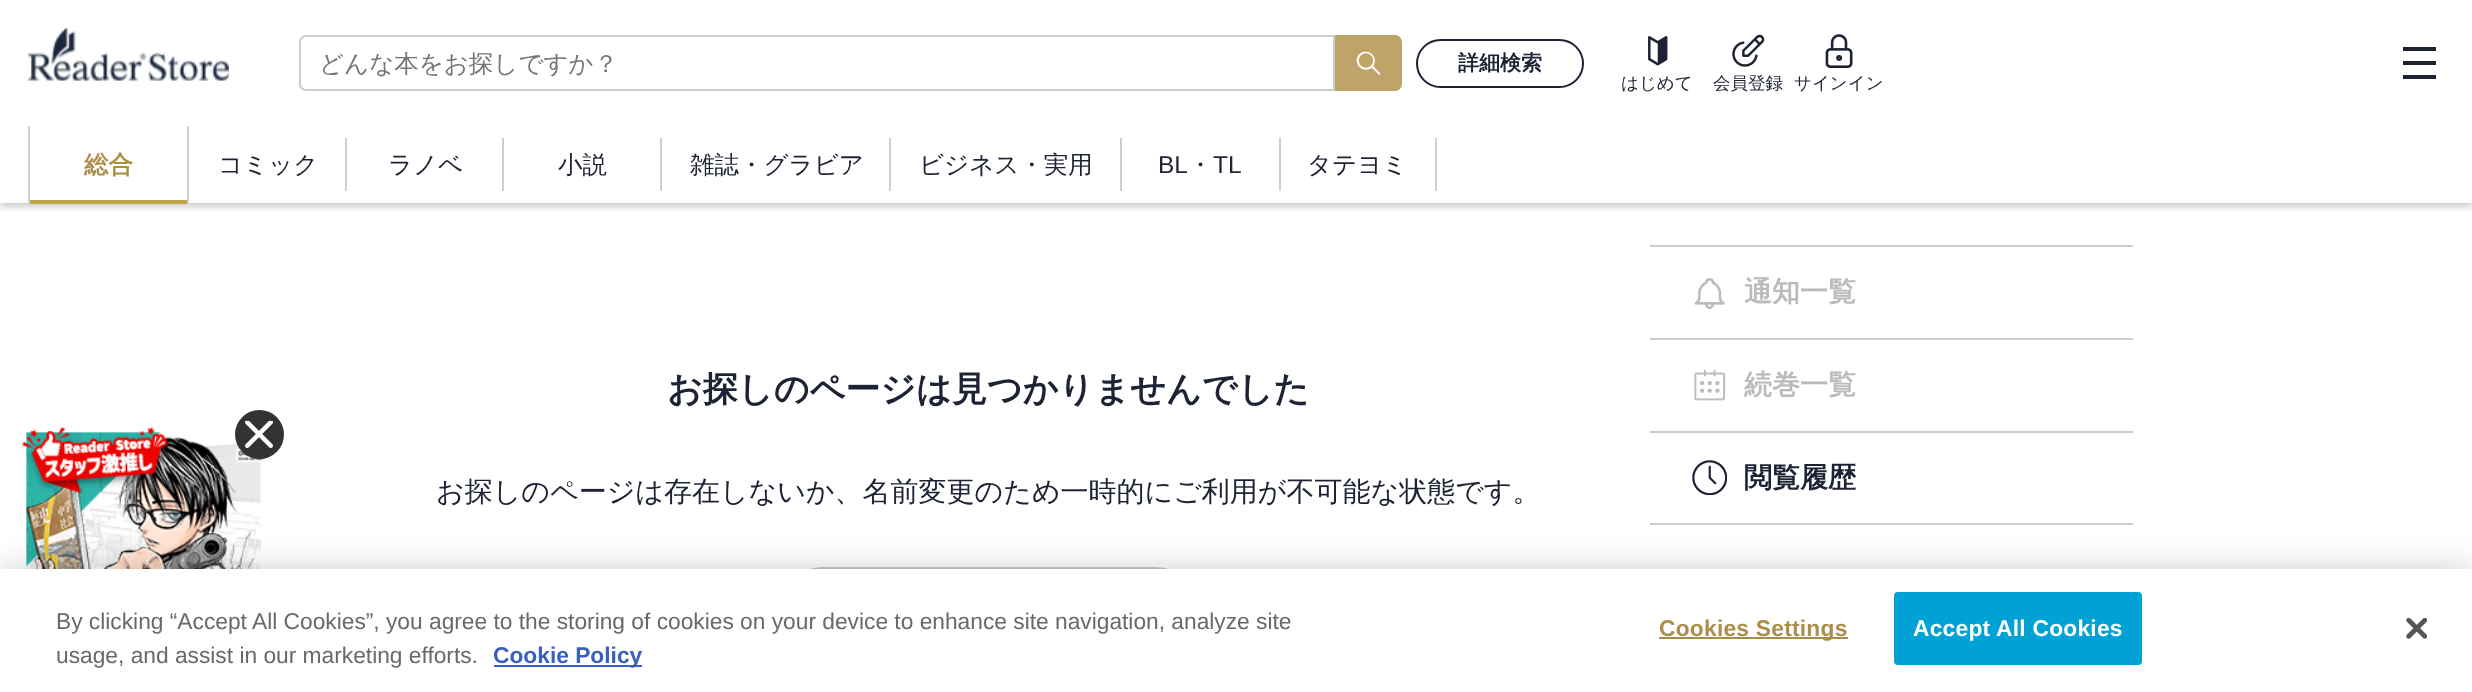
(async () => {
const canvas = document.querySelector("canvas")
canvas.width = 2472
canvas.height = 692
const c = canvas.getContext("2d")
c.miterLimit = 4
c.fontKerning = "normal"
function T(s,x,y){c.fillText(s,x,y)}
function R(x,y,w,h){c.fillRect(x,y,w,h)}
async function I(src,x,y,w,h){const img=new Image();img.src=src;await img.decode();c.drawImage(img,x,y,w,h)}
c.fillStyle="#fff"
R(0,0,2472,692)
c.save()
c.beginPath()
c.rect(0,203,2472,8)
c.clip()
c.fillStyle="#00000033"
c.filter="blur(3.5px)"
c.beginPath()
c.rect(0,4,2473,203)
c.fill()
c.filter="none"
c.restore()
await I("1.png",28,28,201,53)
c.beginPath()
c.roundRect(300,36,1034,54,[6,0,0,6])
c.strokeStyle="#ccc"
c.lineWidth=2
c.stroke()
c.font="500 24.5px WenQuanYi Zen Hei"
c.fillStyle="#757575"
T("どんな本をお探しですか？",319,72)
c.fillStyle="#bea468"
c.beginPath()
c.roundRect(1335,35,67,56,[0,7,7,0])
c.fill()
await I("2.png",1356,51,25,24)
c.beginPath()
c.roundRect(1417,40,166,47,23.5)
c.strokeStyle="#1d2334"
c.stroke()
c.font="bold 21px WenQuanYi Zen Hei"
c.fillStyle="#1d2334"
T("詳細検索",1458,70)
R(2403,47,33,4)
R(2403,61,33,4)
R(2403,75,33,4)
await I("3.png",1648,36,20,30)
c.font="500 17.5px WenQuanYi Zen Hei"
T("はじめて",1621,89)
await I("4.png",1732,34,33,33)
T("会員登録",1713,89)
await I("5.png",1825,34,28,34)
T("サインイン",1794,89)
c.fillStyle="#c7d0db"
R(187,126,2,77)
R(28,126,2,77)
c.font="bold 24.5px WenQuanYi Zen Hei"
c.fillStyle="#ab8e48"
T("総合",84,173)
c.fillStyle="#bea548"
R(30,200,157,4)
c.font="500 24.5px WenQuanYi Zen Hei"
c.fillStyle="#1d2334"
T("コミック",218,173)
c.fillStyle="#c7d0db"
R(345,138,2,53)
c.fillStyle="#1d2334"
T("ラノベ",388,173)
c.fillStyle="#c7d0db"
R(502,138,2,53)
c.fillStyle="#1d2334"
T("小説",558,173)
c.fillStyle="#c7d0db"
R(660,138,2,53)
c.fillStyle="#1d2334"
T("雑誌・グラビア",690,173)
c.fillStyle="#c7d0db"
R(889,138,2,53)
c.fillStyle="#1d2334"
T("ビジネス・実用",919,173)
c.fillStyle="#c7d0db"
R(1120,138,2,53)
c.font="24.5px Liberation Sans"
c.fillStyle="#1d2334"
T("BL",1158,173)
c.font="500 24.5px WenQuanYi Zen Hei"
T("・",1188,173)
c.font="24.5px Liberation Sans"
T("TL",1213,173)
c.fillStyle="#c7d0db"
R(1279,138,2,53)
c.font="500 24.5px WenQuanYi Zen Hei"
c.fillStyle="#1d2334"
T("タテヨミ",1307,173)
c.fillStyle="#c7d0db"
R(1435,138,2,53)
await I("7.png",22,427,242,142)
c.fillStyle="#333"
c.beginPath()
c.arc(259.5,434.5,24.5,0,7)
c.fill()
await I("6.png",245,420,28,28)
c.font="bold 35px WenQuanYi Zen Hei"
c.fillStyle="#1d2334"
T("お探しのページは見つかりませんでした",667,401)
c.font="500 28px WenQuanYi Zen Hei"
T("お探しのページは存在しないか、名前変更のため一時的にご利用が不可能な状態です。",436,501)
c.beginPath()
c.roundRect(780,568,418,86,43)
c.strokeStyle="#ccc"
c.stroke()
c.fillStyle="#ccc"
R(1650,245,483,2)
R(1650,338,483,2)
await I("8.png",1694,278,31,32)
c.font="bold 28px WenQuanYi Zen Hei"
c.fillStyle="#bbb"
T("通知一覧",1744,301)
c.fillStyle="#ccc"
R(1650,431,483,2)
await I("9.png",1694,369,32,32)
c.fillStyle="#bbb"
T("続巻一覧",1744,394)
c.fillStyle="#ccc"
R(1650,523,483,2)
await I("10.png",1692,460,35,35)
c.fillStyle="#1d2334"
T("閲覧履歴",1744,487)
c.fillStyle="#00000033"
c.filter="blur(16px)"
c.beginPath()
c.rect(0,569,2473,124)
c.fill()
c.filter="none"
c.fillStyle="#fff"
R(0,569,2472,123)
c.font="22.75px Liberation Sans"
c.fillStyle="#696969"
T("By clicking “Accept All Cookies”, you agree to the storing of cookies on your device to enhance site navigation, analyze site",56,629)
T("usage, and assist in our marketing efforts.",56,663)
c.fillStyle="#3860be"
R(494,665,148,2)
c.font="bold 22.75px Liberation Sans"
T("Cookie Policy",493,663)
c.fillStyle="#a78b48"
R(1659,637,189,2)
c.letterSpacing="0.25px"
c.fillStyle="#ab8e48"
T("Cookies Settings",1659,636)
c.fillStyle="#00a2d6"
c.beginPath()
c.roundRect(1895,593,246,71,3)
c.fill()
c.strokeStyle="#00a2d6"
c.stroke()
c.fillStyle="#fff"
T("Accept All Cookies",1913,636)
await I("11.png",2406,618,21,21)
})()
